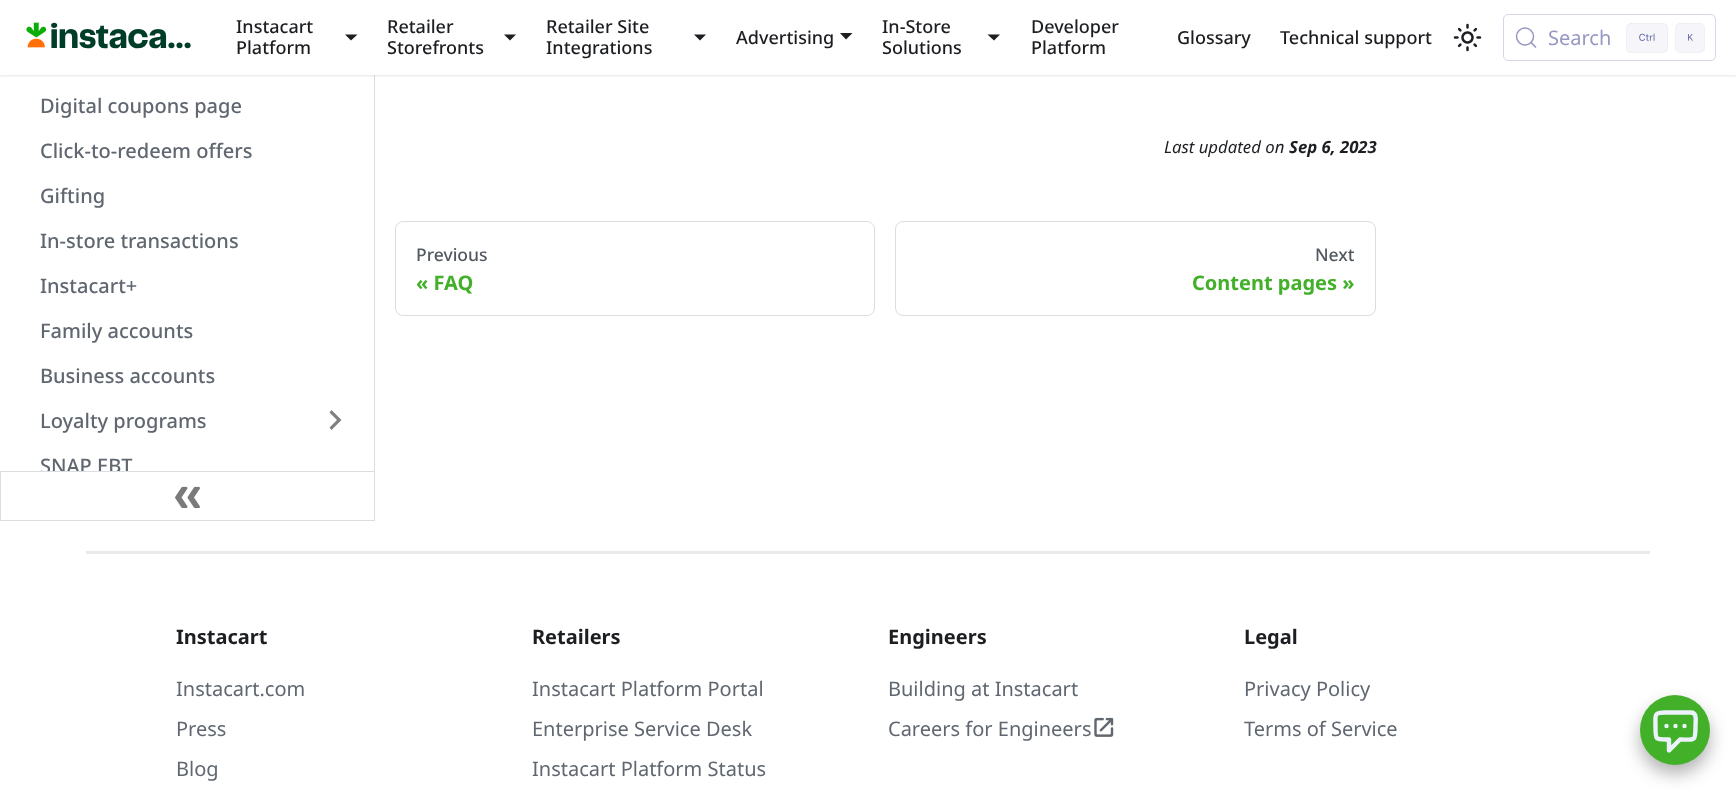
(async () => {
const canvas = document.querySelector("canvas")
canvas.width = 1736
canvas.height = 791
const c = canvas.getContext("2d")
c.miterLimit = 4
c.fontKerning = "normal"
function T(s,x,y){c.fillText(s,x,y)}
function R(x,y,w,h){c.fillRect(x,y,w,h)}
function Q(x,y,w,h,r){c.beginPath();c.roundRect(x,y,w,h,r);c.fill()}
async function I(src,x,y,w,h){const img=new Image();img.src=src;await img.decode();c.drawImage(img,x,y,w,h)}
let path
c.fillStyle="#fff"
R(0,0,1736,791)
c.fillStyle="#dadde1"
R(374,75,1,396)
c.fillStyle="#0000001a"
c.filter="blur(1px)"
c.beginPath()
c.rect(0,1,1736,75)
c.fill()
c.filter="none"
c.fillStyle="#fff"
R(0,0,1736,75)
await I("1.png",26,22,21,26)
c.font="600 30px 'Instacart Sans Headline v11'"
c.fillStyle="#003d29"
T("instaca…",50,48)
c.font="500 18px Noto Sans"
c.fillStyle="#1c1e21"
T("Instacart",236,33)
path = new Path2D("M345 34.5h12.5l-6.5 6z")
c.fill(path)
T("Platform",236,54)
T("Retailer",387,33)
path = new Path2D("M504 34.5h12l-6 6z")
c.fill(path)
T("Storefronts",387,54)
T("Retailer Site",546,33)
path = new Path2D("M694 34.5h12l-6 6z")
c.fill(path)
T("Integrations",546,54)
T("Advertising",736,44)
path = new Path2D("M840 33h12.5l-6.5 6.5z")
c.fill(path)
T("In-Store",882,33)
path = new Path2D("M987.5 34.5h12.5l-6 6z")
c.fill(path)
T("Solutions",882,54)
T("Developer",1031,33)
T("Platform",1031,54)
T("Glossary",1177,44)
T("Technical support",1280,44)
await I("2.png",1453,23,29,29)
c.beginPath()
c.roundRect(1503.5,14.5,212,46,4.5)
c.strokeStyle="#d6d6e7"
c.stroke()
c.beginPath()
c.arc(1525,36.5,8.5,0,7)
c.strokeStyle="#9698c3"
c.lineWidth=1.5
c.stroke()
path = new Path2D("M1535.5 47l-4.5-4.5")
c.lineWidth=1.7
c.lineCap="round"
c.lineJoin="round"
c.stroke(path)
c.font="20px Noto Sans"
c.fillStyle="#9698c3"
T("Search",1548,45)
c.fillStyle="#f5f5fa"
Q(1626,23,42,30,5)
c.beginPath()
c.roundRect(1626.5,23.5,41,29,4.5)
c.strokeStyle="#d6d6e733"
c.lineWidth=1
c.lineJoin="miter"
c.stroke()
await I("3.png",1639,33,16,8)
Q(1675,23,30,30,5)
c.beginPath()
c.roundRect(1675.5,23.5,29,29,4.5)
c.stroke()
await I("4.png",1688,34,5,7)
c.font="500 20px Noto Sans"
c.fillStyle="#606770"
T("Digital coupons page",40,113)
T("Click-to-redeem offers",40,158)
T("Gifting",40,203)
T("In-store transactions",40,248)
T("Instacart+",40,293)
T("Family accounts",40,338)
T("Business accounts",40,383)
T("Loyalty programs",40,428)
c.fillStyle="#808080"
path = new Path2D("M329.5 412.5l7.5 7.5l-7.5 7.5l2 2.5l10-10l-10-10z")
c.fill(path)
c.save()
c.beginPath()
c.rect(40,453,93,18)
c.clip()
c.fillStyle="#606770"
T("SNAP EBT",40,473)
c.restore()
c.strokeStyle="#dadde1"
c.strokeRect(.5,471.5,374,49)
await I("5.png",175,486,25,23)
c.font="italic 16.75px Noto Sans"
c.fillStyle="#1c1e21"
T("Last updated on",1164,153)
c.font="italic bold 16.75px Noto Sans"
T("Sep 6, 2023",1289,153)
c.beginPath()
c.roundRect(395.5,221.5,479,94,7.5)
c.stroke()
c.font="500 17.5px Noto Sans"
c.fillStyle="#525860"
T("Previous",416,261)
c.font="bold 20px Noto Sans"
c.fillStyle="#43b02a"
T("« FAQ",416,290)
c.beginPath()
c.roundRect(895.5,221.5,480,94,7.5)
c.stroke()
c.font="500 17.5px Noto Sans"
c.fillStyle="#525860"
T("Next",1315,261)
c.font="bold 20px Noto Sans"
c.fillStyle="#43b02a"
T("Content pages »",1192,290)
c.fillStyle="#e8e9eb"
R(86,551,1564,3)
c.fillStyle="#1c1e21"
T("Instacart",176,644)
c.font="20px Noto Sans"
c.fillStyle="#606770"
T("Instacart.com",176,696)
T("Press",176,736)
T("Blog",176,776)
c.font="bold 20px Noto Sans"
c.fillStyle="#1c1e21"
T("Retailers",532,644)
c.font="20px Noto Sans"
c.fillStyle="#606770"
T("Instacart Platform Portal",532,696)
T("Enterprise Service Desk",532,736)
T("Instacart Platform Status",532,776)
c.font="bold 20px Noto Sans"
c.fillStyle="#1c1e21"
T("Engineers",888,644)
c.font="20px Noto Sans"
c.fillStyle="#606770"
T("Building at Instacart",888,696)
T("Careers for Engineers",888,736)
await I("6.png",1094,717,20,20)
c.font="bold 20px Noto Sans"
c.fillStyle="#1c1e21"
T("Legal",1244,644)
c.font="20px Noto Sans"
c.fillStyle="#606770"
T("Privacy Policy",1244,696)
T("Terms of Service",1244,736)
c.fillStyle="#0000004d"
c.filter="blur(8.5px)"
c.beginPath()
c.roundRect(1640,704,70,70,35)
c.fill()
c.filter="none"
c.fillStyle="#43b02a"
c.beginPath()
c.arc(1675,730,35,0,7)
c.fill()
path = new Path2D("M1666.5 726h0m9 0h0m9 0h0m-15.5 13.5c-14 0-13.5 1-13.5-13.5c0-11-2-13.5 9.5-13.5h26c6.5 0 4.5 9.5 4.5 13.5c0 16-.5 13.5-15.5 13.5l-11 11z")
c.strokeStyle="#ebf2fc"
c.lineWidth=4.4
c.lineJoin="round"
c.stroke(path)
})()
